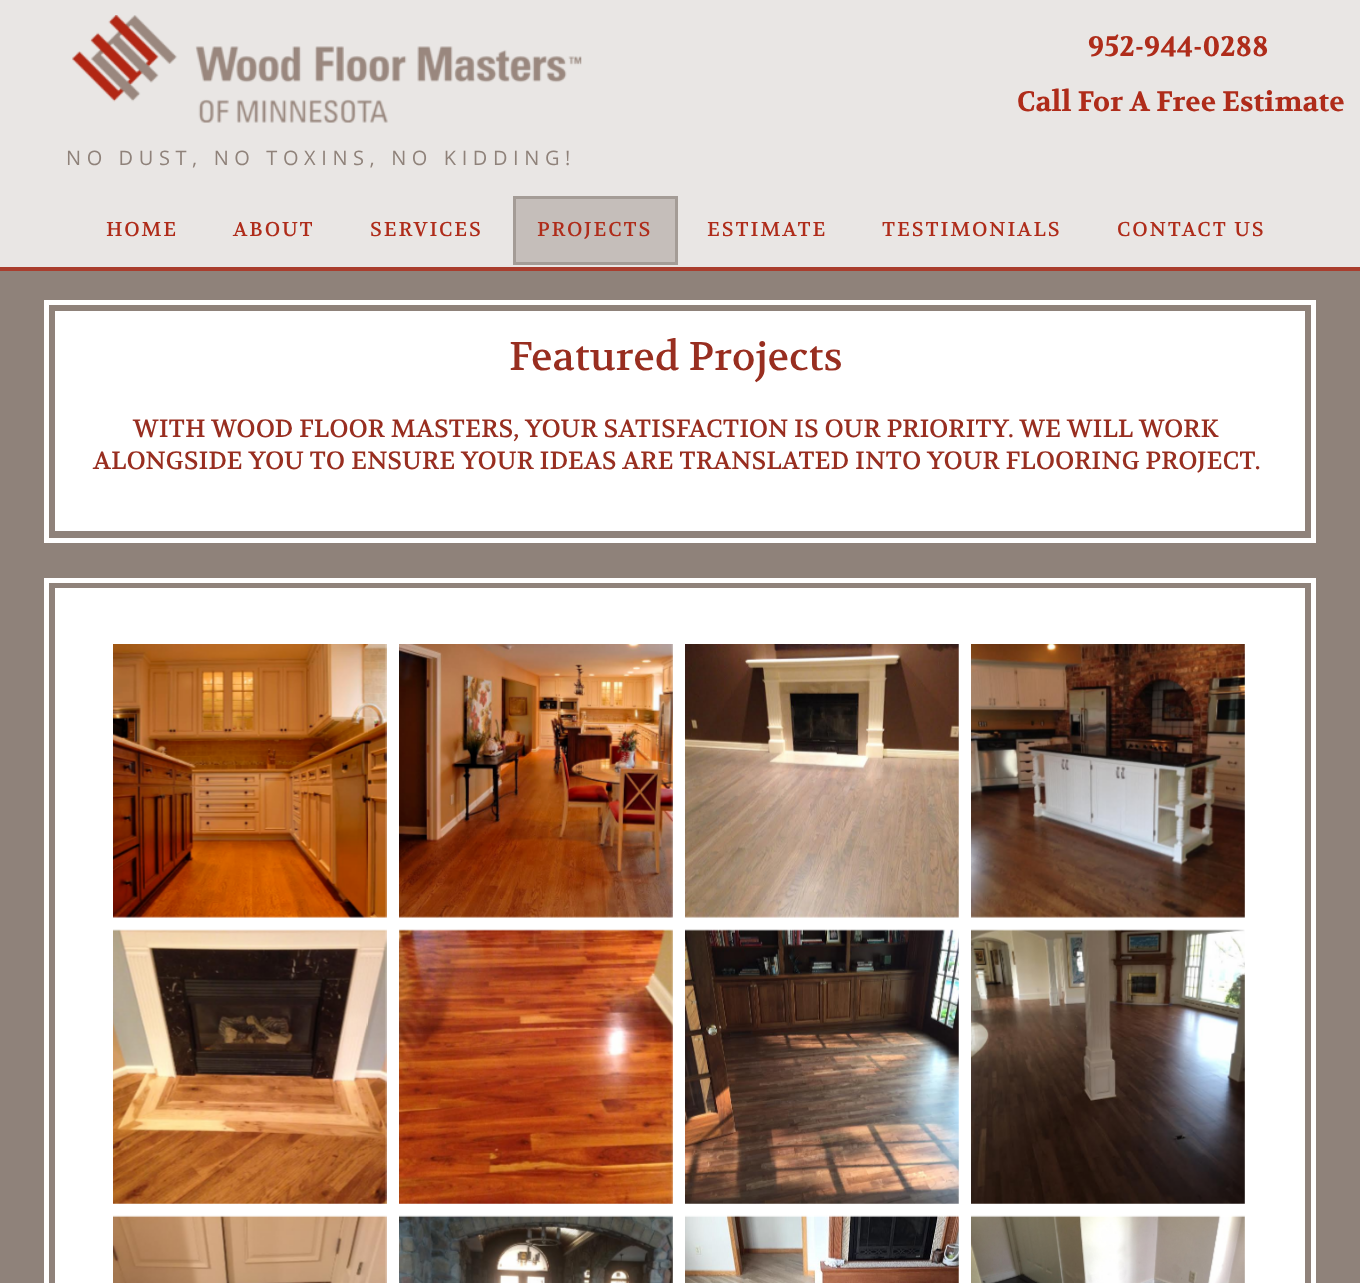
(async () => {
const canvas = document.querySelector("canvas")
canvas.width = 1360
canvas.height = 1283
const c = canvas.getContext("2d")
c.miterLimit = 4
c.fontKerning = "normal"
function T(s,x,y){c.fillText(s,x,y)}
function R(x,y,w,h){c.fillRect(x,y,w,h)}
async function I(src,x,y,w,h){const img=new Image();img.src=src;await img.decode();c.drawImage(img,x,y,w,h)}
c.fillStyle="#8f827a"
R(0,0,1360,1283)
c.fillStyle="#e9e6e4"
c.beginPath()
c.rect(-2,-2,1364,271)
c.fill()
c.strokeStyle="#a93d2d"
c.lineWidth=4
c.stroke()
await I("1.png",72,15,510,108)
c.font="bold 28.1px Volkhov"
c.fillStyle="#af2c1a"
T("952-944-0288",1088,56)
T("Call For A Free Estimate",1017,111)
c.letterSpacing="5.6px"
c.font="20px Open Sans"
c.fillStyle="#8f827a"
T("NO DUST, NO TOXINS, NO KIDDING!",66,165)
c.letterSpacing="1.9px"
c.font="20px Volkhov"
c.fillStyle="#af2c1a"
T("HOME",106,236)
T("ABOUT",233,236)
T("SERVICES",370,236)
c.fillStyle="#c5beba"
c.beginPath()
c.rect(514.5,197.5,162,66)
c.fill()
c.strokeStyle="#a49c96"
c.lineWidth=3
c.stroke()
c.fillStyle="#af2c1a"
T("PROJECTS",537,236)
T("ESTIMATE",707,236)
T("TESTIMONIALS",882,236)
T("CONTACT US",1117,236)
c.strokeStyle="#fff"
c.lineWidth=5
c.strokeRect(46.5,302.5,1267,238)
c.fillStyle="#fff"
R(55,311,1250,220)
c.letterSpacing="0px"
c.font="40px Volkhov"
c.fillStyle="#982e20"
T("Featured Projects",509,370)
c.font="25px Volkhov"
T("WITH WOOD FLOOR MASTERS, YOUR SATISFACTION IS OUR PRIORITY. WE WILL WORK",133,437)
T("ALONGSIDE YOU TO ENSURE YOUR IDEAS ARE TRANSLATED INTO YOUR FLOORING PROJECT.",93,469)
c.strokeRect(46.5,580.5,1267,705)
c.fillStyle="#fff"
R(55,588,1250,695)
await I("2.png",113,644,274,274)
await I("3.png",399,644,274,274)
await I("4.png",685,644,274,274)
await I("5.png",971,644,274,274)
await I("6.png",113,929,274,275)
await I("7.png",399,929,274,275)
await I("8.png",685,929,274,275)
await I("9.png",971,929,274,275)
await I("10.png",113,1215,274,68)
await I("11.png",399,1215,274,68)
await I("12.png",685,1215,274,68)
await I("13.png",971,1215,274,68)
})()
